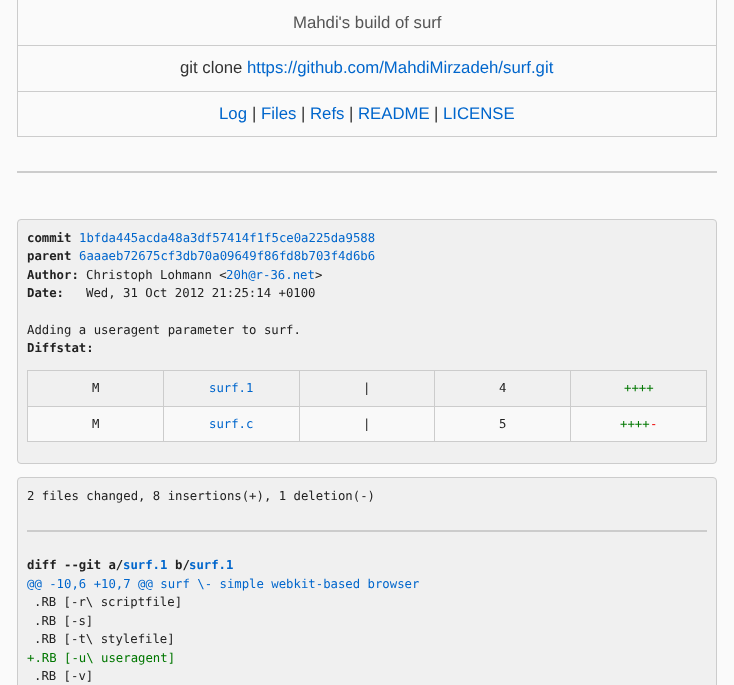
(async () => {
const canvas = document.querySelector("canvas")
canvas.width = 734
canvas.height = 685
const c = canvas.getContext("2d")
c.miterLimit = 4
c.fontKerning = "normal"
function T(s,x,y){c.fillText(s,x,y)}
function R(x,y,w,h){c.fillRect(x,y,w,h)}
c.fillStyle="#fafafa"
R(0,0,734,685)
c.font="16.75px Liberation Sans"
c.fillStyle="#555"
T("Mahdi's build of surf",293,28)
c.fillStyle="#ccc"
R(17,45,700,1)
R(17,91,700,1)
R(716,91,1,46)
R(716,0,1,92)
R(17,136,700,1)
R(17,91,1,46)
R(17,0,1,92)
c.fillStyle="#333"
T("git clone",180,73)
c.fillStyle="#06c"
T("https://github.com/MahdiMirzadeh/surf.git",247,73)
T("Log",219,119)
c.fillStyle="#333"
T("|",252,119)
c.fillStyle="#06c"
T("Files",261,119)
c.fillStyle="#333"
T("|",301,119)
c.fillStyle="#06c"
T("Refs",310,119)
c.fillStyle="#333"
T("|",349,119)
c.fillStyle="#06c"
T("README",358,119)
c.fillStyle="#333"
T("|",434,119)
c.fillStyle="#06c"
T("LICENSE",443,119)
c.fillStyle="#ccc"
R(17,171,700,2)
c.fillStyle="#f0f0f0"
c.beginPath()
c.roundRect(17.5,219.5,699,244,3.5)
c.fill()
c.strokeStyle="#ccc"
c.stroke()
c.font="bold 12.3px DejaVu Sans Mono"
c.fillStyle="#222"
T("commit",27,242)
c.font="12.3px DejaVu Sans Mono"
c.fillStyle="#06c"
T("1bfda445acda48a3df57414f1f5ce0a225da9588",79,242)
c.font="bold 12.3px DejaVu Sans Mono"
c.fillStyle="#222"
T("parent",27,260)
c.font="12.3px DejaVu Sans Mono"
c.fillStyle="#06c"
T("6aaaeb72675cf3db70a09649f86fd8b703f4d6b6",79,260)
c.font="bold 12.3px DejaVu Sans Mono"
c.fillStyle="#222"
T("Author:",27,279)
c.font="12.3px DejaVu Sans Mono"
T("Christoph Lohmann <",86,279)
c.fillStyle="#06c"
T("20h@r-36.net",226,279)
c.fillStyle="#222"
T(">",315,279)
c.font="bold 12.3px DejaVu Sans Mono"
T("Date:",27,297)
c.font="12.3px DejaVu Sans Mono"
T("Wed, 31 Oct 2012 21:25:14 +0100",86,297)
T("Adding a useragent parameter to surf.",27,334)
c.font="bold 12.3px DejaVu Sans Mono"
T("Diffstat:",27,352)
c.fillStyle="#ccc"
R(570,370,137,1)
R(570,406,137,1)
c.fillStyle="#f9f9f9"
R(28,407,678,34)
c.fillStyle="#ccc"
R(706,406,1,36)
R(570,441,137,1)
R(570,406,1,36)
R(434,406,137,1)
R(570,370,1,37)
R(434,370,137,1)
R(434,441,137,1)
R(434,406,1,36)
R(299,406,136,1)
R(434,370,1,37)
R(299,370,136,1)
R(299,441,136,1)
R(299,406,1,36)
R(163,406,137,1)
R(299,370,1,37)
R(163,370,137,1)
R(163,441,137,1)
R(163,406,1,36)
R(27,406,137,1)
R(163,370,1,37)
R(27,370,137,1)
R(27,441,137,1)
R(27,406,1,36)
R(27,370,1,37)
c.font="12.3px DejaVu Sans Mono"
c.fillStyle="#222"
T("M",92,392)
c.fillStyle="#06c"
T("surf.1",209,392)
c.fillStyle="#222"
T("|",363,392)
T("4",499,392)
c.fillStyle="#ccc"
R(706,370,1,37)
c.fillStyle="#070"
T("++++",624,392)
c.fillStyle="#222"
T("M",92,428)
c.fillStyle="#06c"
T("surf.c",209,428)
c.fillStyle="#222"
T("|",363,428)
T("5",499,428)
c.fillStyle="#070"
T("++++",620,428)
c.fillStyle="#e00"
T("-",650,428)
c.fillStyle="#f0f0f0"
c.beginPath()
c.roundRect(17.5,477.5,699,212,3.5)
c.fill()
c.stroke()
c.fillStyle="#222"
T("2 files changed, 8 insertions(+), 1 deletion(-)",27,500)
c.fillStyle="#ccc"
R(27,530,680,2)
c.font="bold 12.3px DejaVu Sans Mono"
c.fillStyle="#222"
T("diff --git a/",27,569)
c.fillStyle="#06c"
T("surf.1",123,569)
c.fillStyle="#222"
T("b/",175,569)
c.fillStyle="#06c"
T("surf.1",189,569)
c.font="12.3px DejaVu Sans Mono"
T("@@ -10,6 +10,7 @@ surf \\- simple webkit-based browser",27,588)
c.fillStyle="#222"
T(".RB [-r\\ scriptfile]",34,606)
T(".RB [-s]",34,625)
T(".RB [-t\\ stylefile]",34,643)
c.fillStyle="#070"
T("+.RB [-u\\ useragent]",27,662)
c.fillStyle="#222"
T(".RB [-v]",34,680)
})()
